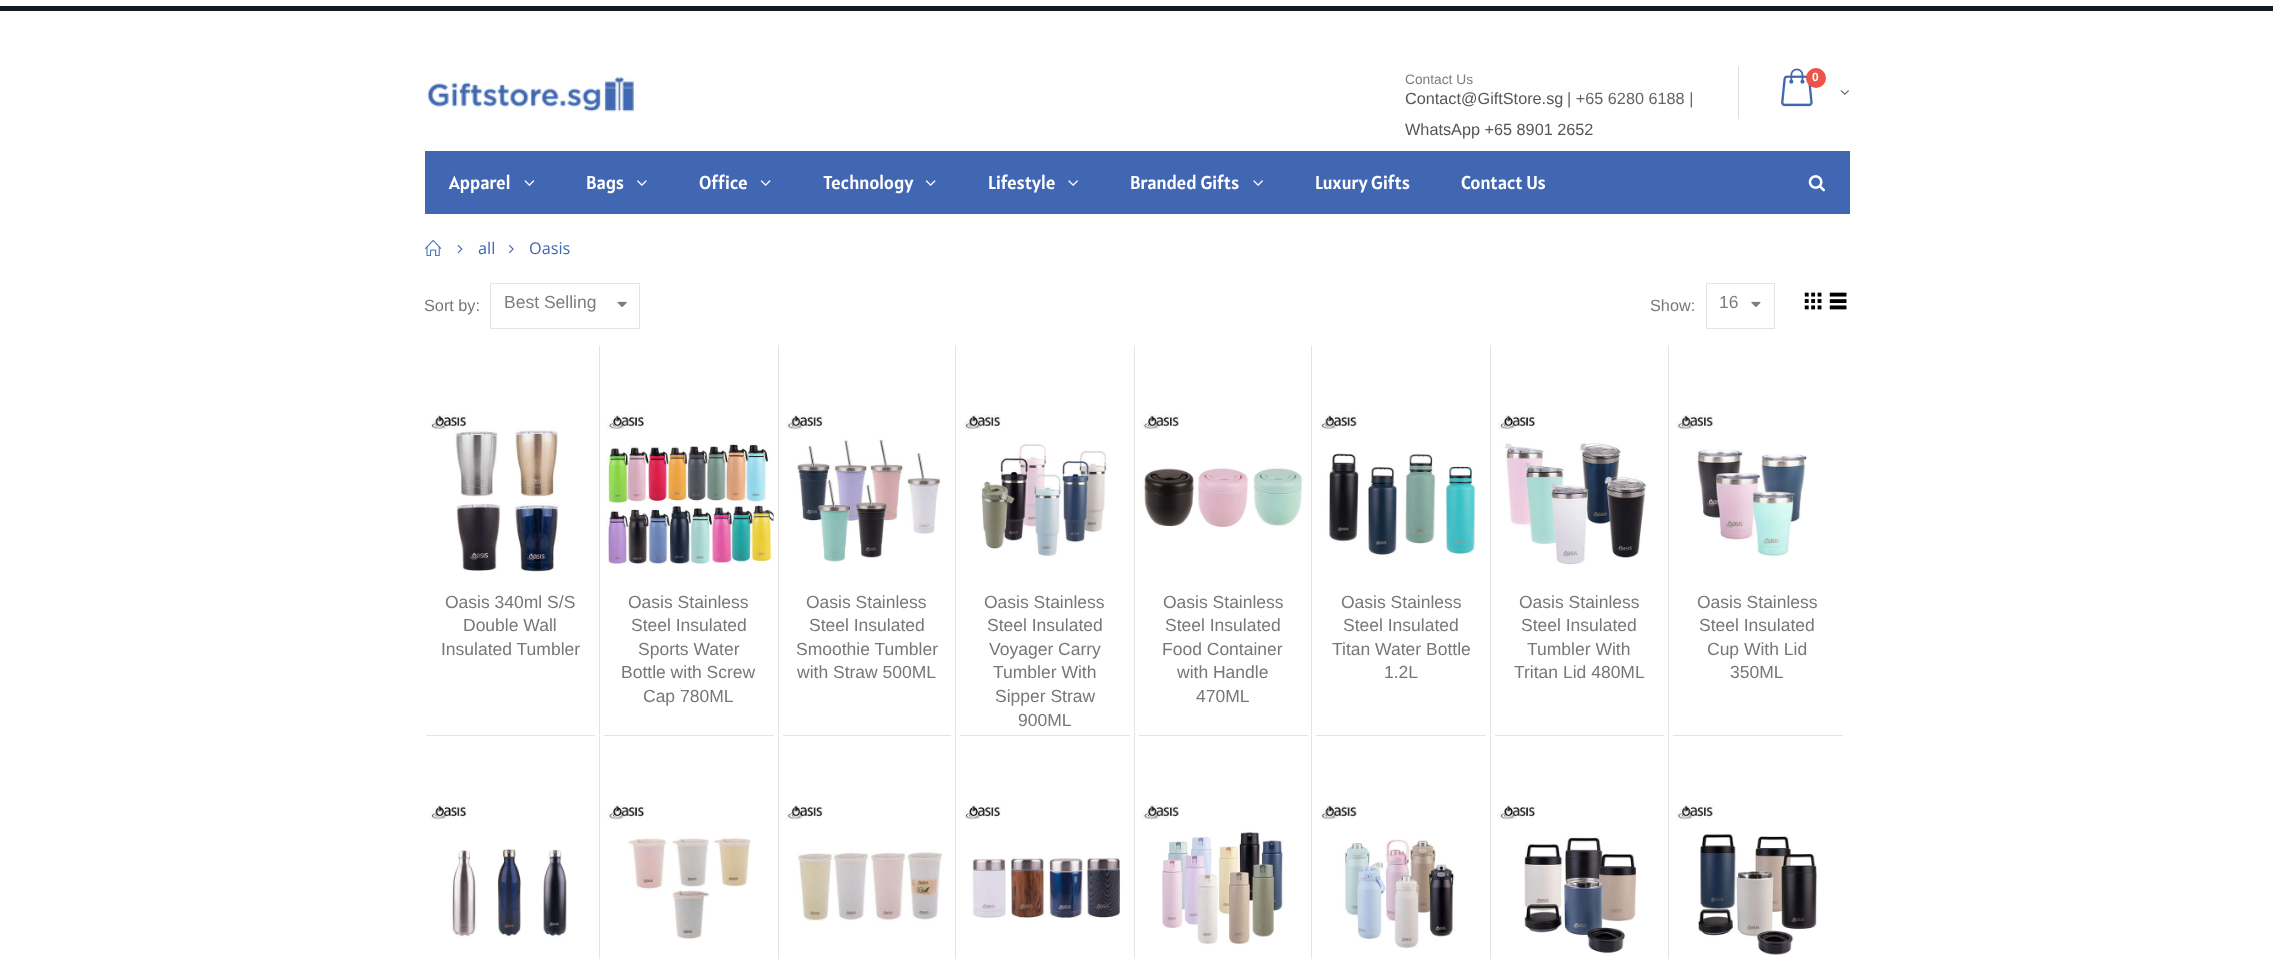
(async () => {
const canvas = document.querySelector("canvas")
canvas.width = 2273
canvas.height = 959
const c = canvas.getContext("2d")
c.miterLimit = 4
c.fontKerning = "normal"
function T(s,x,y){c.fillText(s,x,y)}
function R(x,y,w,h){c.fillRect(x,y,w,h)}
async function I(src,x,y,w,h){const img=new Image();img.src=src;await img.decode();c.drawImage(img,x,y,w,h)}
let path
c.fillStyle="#fff"
R(0,0,2273,959)
c.fillStyle="#141a1e"
R(0,6,2273,5)
await I("1.png",427,76,207,36)
c.fillStyle="#dde0e2"
R(1738,66,1,53)
c.font="13.75px Liberation Sans"
c.fillStyle="#7a7d82"
T("Contact Us",1405,84)
c.font="16.25px Liberation Sans"
c.fillStyle="#606669"
T("| +65 6280 6188 |",1567,104)
c.fillStyle="#565656"
T("WhatsApp +65 8901 2652",1405,135)
T("Contact@GiftStore.sg",1405,104)
await I("2.png",1781,68,32,39)
c.fillStyle="#ed5348"
c.beginPath()
c.arc(1816,78,10,0,7)
c.fill()
c.font="bold 12px Liberation Sans"
c.fillStyle="#fff"
T("0",1812,81)
await I("3.png",1840,90,9,5)
c.fillStyle="#4267b2"
R(425,151,1425,63)
c.font="18.75px Alatsi"
c.fillStyle="#fff"
T("Apparel",449,189)
await I("4.png",524,180,11,6)
T("Bags",586,189)
await I("5.png",637,180,10,6)
T("Office",699,189)
await I("6.png",760,180,11,6)
T("Technology",823,189)
await I("6.png",925,180,11,6)
T("Lifestyle",988,189)
await I("7.png",1068,180,10,6)
T("Branded Gifts",1130,189)
await I("7.png",1253,180,10,6)
T("Luxury Gifts",1315,189)
T("Contact Us",1461,189)
await I("8.png",1808,175,17,17)
await I("9.png",425,240,17,16)
await I("10.png",457,244,6,10)
c.font="16.25px Open Sans"
c.fillStyle="#4267b2"
T("all",478,254)
await I("11.png",508,244,6,10)
T("Oasis",529,254)
c.font="16.25px Liberation Sans"
c.fillStyle="#777"
T("Sort by:",424,311)
c.strokeStyle="#e4e4e4"
c.strokeRect(490.5,283.5,149,45)
c.font="17.5px Liberation Sans"
c.fillStyle="#7a7d82"
T("Best Selling",504,308)
await I("12.png",617,301,10,6)
c.font="16.25px Liberation Sans"
c.fillStyle="#777"
T("Show:",1650,311)
c.strokeRect(1706.5,283.5,68,45)
c.font="17.5px Liberation Sans"
c.fillStyle="#7a7d82"
T("16",1719,308)
await I("13.png",1751,301,10,6)
await I("14.png",1804,292,18,18)
await I("15.png",1829,292,18,18)
await I("16.png",430,415,128,157)
c.fillStyle="#777"
T("Oasis 340ml S/S",445,608)
T("Double Wall",463,631)
T("Insulated Tumbler",441,655)
c.fillStyle="#e3e4e4"
path = new Path2D("M599 736v-391l1 1v389z")
c.fill(path)
await I("17.png",607,415,167,149)
c.fillStyle="#777"
T("Oasis Stainless",628,608)
T("Steel Insulated",631,631)
T("Sports Water",638,655)
T("Bottle with Screw",621,678)
T("Cap 780ML",643,702)
c.fillStyle="#e3e4e4"
path = new Path2D("M778 736v-391l1 1v389z")
c.fill(path)
await I("18.png",786,415,155,148)
c.fillStyle="#777"
T("Oasis Stainless",806,608)
T("Steel Insulated",809,631)
T("Smoothie Tumbler",796,655)
T("with Straw 500ML",797,678)
c.fillStyle="#e3e4e4"
path = new Path2D("M955 736v-391l1 1v389z")
c.fill(path)
await I("19.png",963,415,144,142)
c.fillStyle="#777"
T("Oasis Stainless",984,608)
T("Steel Insulated",987,631)
T("Voyager Carry",989,655)
T("Tumbler With",993,678)
T("Sipper Straw",995,702)
T("900ML",1018,726)
c.fillStyle="#e3e4e4"
path = new Path2D("M1134 736v-391l1 1v389z")
c.fill(path)
await I("20.png",1142,415,161,112)
c.fillStyle="#777"
T("Oasis Stainless",1163,608)
T("Steel Insulated",1165,631)
T("Food Container",1162,655)
T("with Handle",1177,678)
T("470ML",1196,702)
c.fillStyle="#e3e4e4"
path = new Path2D("M1311 736v-391l1 1v389z")
c.fill(path)
await I("21.png",1320,415,156,142)
c.fillStyle="#777"
T("Oasis Stainless",1341,608)
T("Steel Insulated",1343,631)
T("Titan Water Bottle",1332,655)
T("1.2L",1384,678)
c.fillStyle="#e3e4e4"
path = new Path2D("M1490 736v-391l1 1v389z")
c.fill(path)
await I("22.png",1498,415,149,150)
c.fillStyle="#777"
T("Oasis Stainless",1519,608)
T("Steel Insulated",1521,631)
T("Tumbler With",1527,655)
T("Tritan Lid 480ML",1514,678)
c.fillStyle="#e3e4e4"
path = new Path2D("M1668 736v-391l1 1v389z")
c.fill(path)
await I("23.png",1676,415,131,142)
c.fillStyle="#777"
T("Oasis Stainless",1697,608)
T("Steel Insulated",1699,631)
T("Cup With Lid",1707,655)
T("350ML",1730,678)
c.fillStyle="#e3e4e4"
R(426,735,169,1)
await I("24.png",430,805,138,133)
path = new Path2D("M599 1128v-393l1 1v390z")
c.fill(path)
R(604,735,170,1)
await I("25.png",607,805,144,136)
path = new Path2D("M778 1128v-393l1 1v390z")
c.fill(path)
R(783,735,168,1)
await I("26.png",786,805,157,116)
path = new Path2D("M955 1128v-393l1 1v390z")
c.fill(path)
R(960,735,170,1)
await I("27.png",964,805,159,116)
path = new Path2D("M1134 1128v-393l1 1v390z")
c.fill(path)
R(1139,735,169,1)
await I("28.png",1142,805,142,140)
path = new Path2D("M1311 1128v-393l1 1v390z")
c.fill(path)
R(1316,735,170,1)
await I("29.png",1320,805,136,144)
path = new Path2D("M1490 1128v-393l1 1v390z")
c.fill(path)
R(1495,735,169,1)
await I("30.png",1498,805,139,150)
path = new Path2D("M1668 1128v-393l1 1v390z")
c.fill(path)
R(1673,735,170,1)
await I("31.png",1676,805,142,150)
})()
